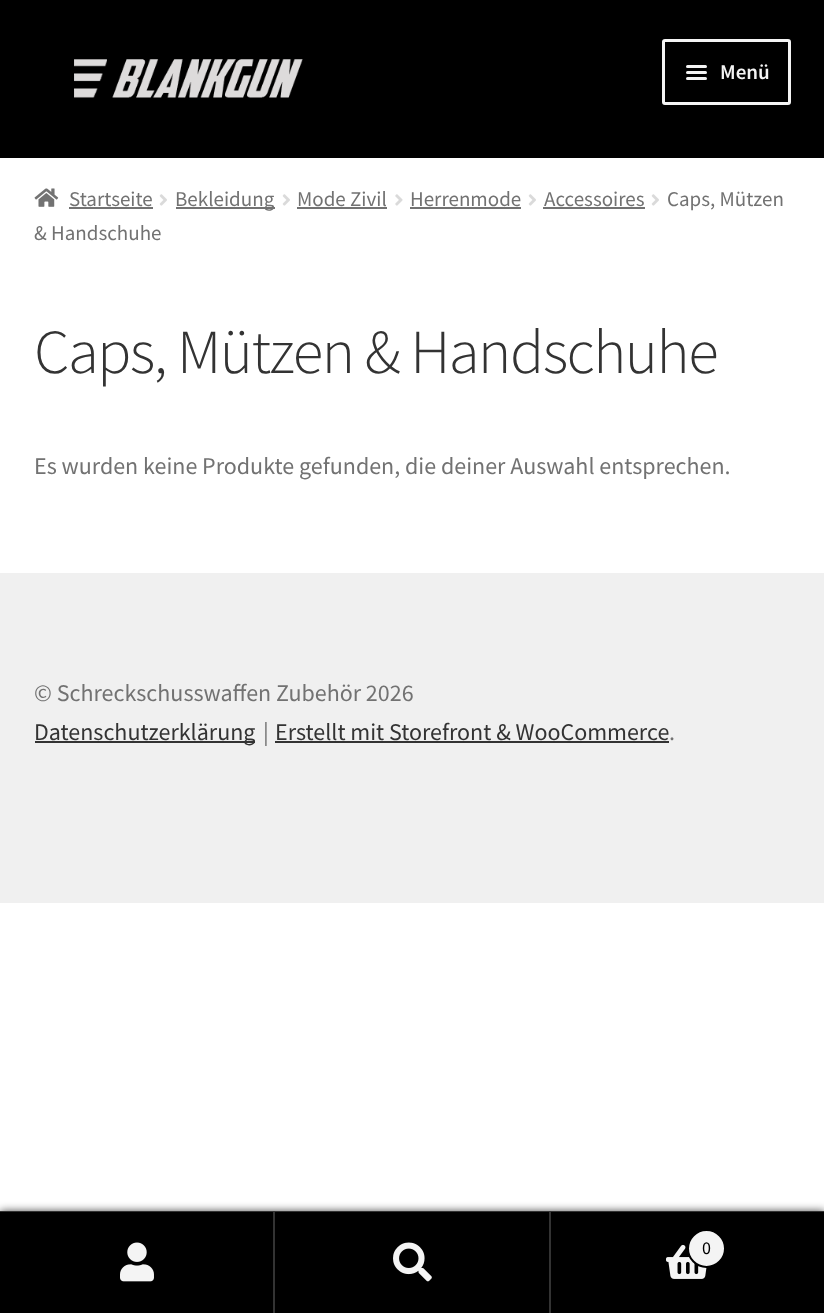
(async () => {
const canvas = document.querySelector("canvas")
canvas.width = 824
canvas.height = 1313
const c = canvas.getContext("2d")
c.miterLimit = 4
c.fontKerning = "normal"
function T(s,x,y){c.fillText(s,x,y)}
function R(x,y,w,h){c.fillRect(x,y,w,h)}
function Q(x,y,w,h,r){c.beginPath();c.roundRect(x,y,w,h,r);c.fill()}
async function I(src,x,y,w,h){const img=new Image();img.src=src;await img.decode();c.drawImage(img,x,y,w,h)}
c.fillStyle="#fff"
R(0,0,824,1313)
c.fillStyle="#000"
R(0,0,824,158)
await I("1.png",74,59,229,39)
c.beginPath()
c.roundRect(663.5,40.5,126,63,1.5)
c.strokeStyle="#f4f4f4"
c.lineWidth=3
c.stroke()
c.fillStyle="#f4f4f4"
Q(686,65,21,3,1.5)
Q(686,71,21,3,1.5)
c.font="600 21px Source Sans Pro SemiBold"
T("Menü",720,79)
Q(686,77,21,3,1.5)
await I("2.png",34,188,25,19)
c.font="21px Source Sans Pro"
c.fillStyle="#727272"
T("Startseite",69,206)
R(69,207,84,2)
await I("3.png",159,194,8,12)
R(176,207,99,2)
T("Bekleidung",175,206)
await I("3.png",282,194,8,12)
T("Mode Zivil",297,206)
R(297,207,90,2)
await I("4.png",395,194,8,12)
T("Herrenmode",410,206)
R(410,207,111,2)
await I("3.png",528,194,8,12)
T("Accessoires",544,206)
R(543,207,102,2)
await I("3.png",651,194,8,12)
T("Caps, Mützen",667,206)
T("& Handschuhe",34,240)
c.letterSpacing="-1.5px"
c.font="300 62.75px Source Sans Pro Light"
c.fillStyle="#333"
T("Caps, Mützen & Handschuhe",34,373)
c.letterSpacing="0px"
c.font="24px Source Sans Pro"
c.fillStyle="#727272"
T("Es wurden keine Produkte gefunden, die deiner Auswahl entsprechen.",34,474)
c.fillStyle="#f0f0f0"
R(0,573,824,330)
c.fillStyle="#727272"
T("© Schreckschusswaffen Zubehör 2026",34,701)
c.fillStyle="#333"
R(35,741,220,2)
T("Datenschutzerklärung",34,740)
c.fillStyle="#727272"
T("|",263,740)
c.fillStyle="#333"
T("Erstellt mit Storefront & WooCommerce",275,740)
R(275,741,394,2)
c.fillStyle="#727272"
T(".",669,740)
c.fillStyle="#000000b3"
c.filter="blur(4.5px)"
c.beginPath()
c.rect(0,1211,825,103)
c.fill()
c.filter="none"
c.fillStyle="#333"
R(0,1211,824,1)
c.fillStyle="#000"
R(0,1212,273,101)
c.fillStyle="#333"
R(273,1212,2,101)
await I("5.png",120,1242,34,40)
c.fillStyle="#000"
R(275,1212,274,101)
c.fillStyle="#333"
R(549,1212,2,101)
await I("6.png",393,1242,39,40)
c.fillStyle="#000"
R(551,1212,273,101)
await I("7.png",666,1244,41,35)
c.fillStyle="#f4f4f4"
c.beginPath()
c.arc(706.5,1248.5,18.5,0,7)
c.fill()
c.strokeStyle="#000"
c.lineWidth=2
c.stroke()
c.font="18px Source Sans Pro"
c.fillStyle="#000"
T("0",702,1254)
})()
